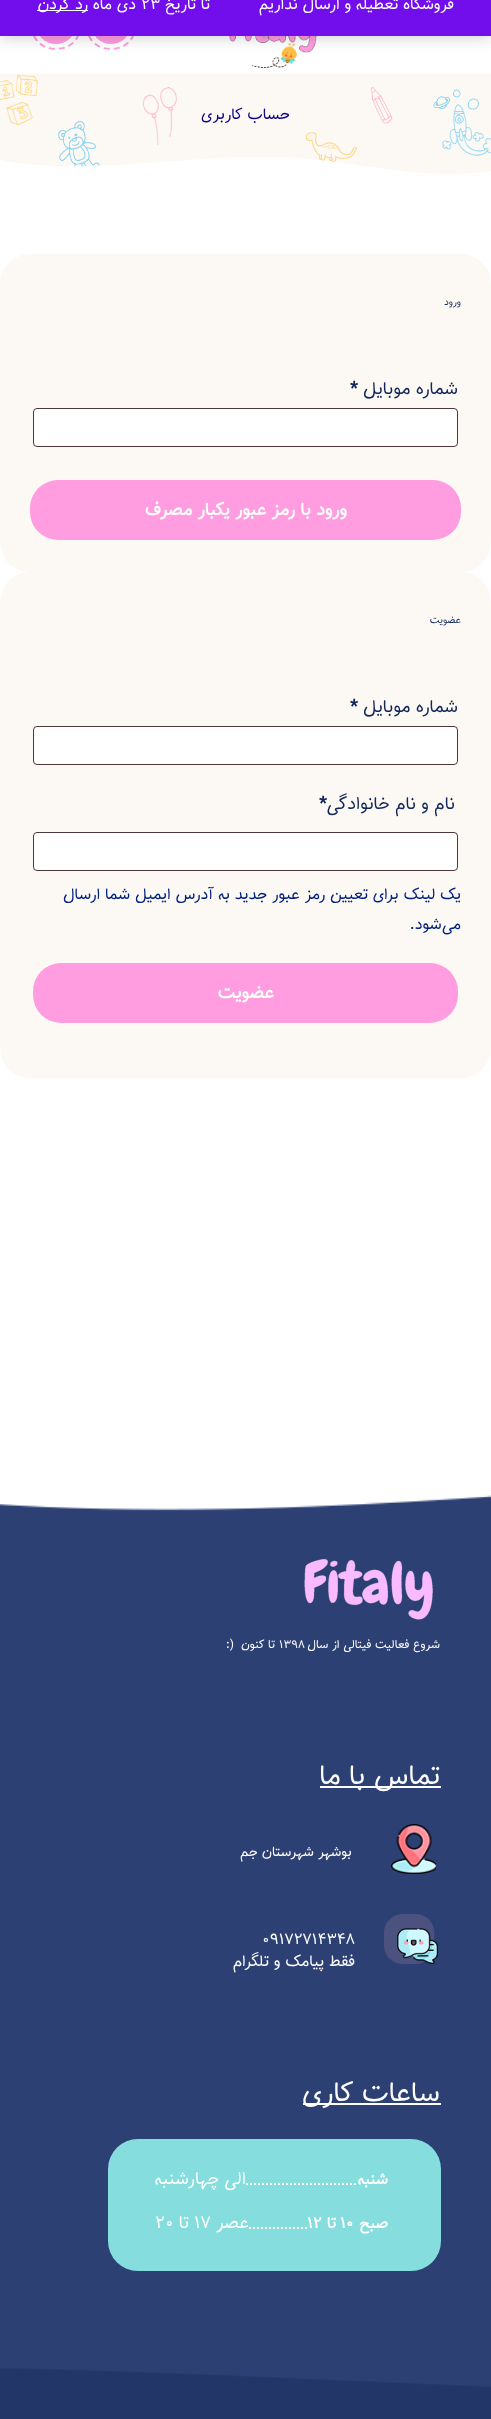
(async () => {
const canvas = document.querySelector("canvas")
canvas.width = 491
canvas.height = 2419
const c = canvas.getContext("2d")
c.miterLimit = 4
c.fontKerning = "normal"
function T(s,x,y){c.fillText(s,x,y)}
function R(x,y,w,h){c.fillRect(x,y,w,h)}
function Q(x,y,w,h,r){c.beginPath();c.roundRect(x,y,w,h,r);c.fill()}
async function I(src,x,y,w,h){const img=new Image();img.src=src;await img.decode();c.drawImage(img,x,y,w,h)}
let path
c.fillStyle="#fff"
R(0,0,491,2419)
await I("1.png",228,36,89,33)
c.fillStyle="#ff9de0"
c.beginPath()
c.arc(111,24,20,0,7)
c.fill()
path = new Path2D("M111-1c33 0 33 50 0 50c-33 0-33-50 0-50z")
c.strokeStyle="#ff9de0"
c.lineWidth=2
c.setLineDash([6,4])
c.stroke(path)
c.beginPath()
c.arc(56,24,20,0,7)
c.fill()
path = new Path2D("M56-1c33 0 33 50 0 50c-33 0-33-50 0-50z")
c.stroke(path)
c.fillStyle="#00000033"
c.filter="blur(8px)"
c.beginPath()
c.rect(0,-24,491,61)
c.fill()
c.filter="none"
c.fillStyle="#720eec"
R(0,0,491,36)
c.direction="rtl"
c.font="16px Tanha"
c.fillStyle="#fff"
T("فروشگاه تعطیله و ارسال نداریم",454,9)
T("تا تاریخ",210,9)
c.direction="ltr"
T("۲۳",141,9)
c.direction="rtl"
T("دی ماه",136,9)
c.fillStyle="#fcfbfe"
R(37,10,51,1)
c.fillStyle="#fff"
T("رد کردن",88,9)
await I("2.png",0,74,491,100)
await I("3.png",0,74,491,82)
c.fillStyle="#0c0187"
T("حساب کاربری",290,119)
c.fillStyle="#fcf9f4"
Q(0,254,491,318,30)
c.font="10px Tanha"
c.fillStyle="#12265a"
T("ورود",461,305)
c.font="18px Tanha"
T("شماره موبایل",458,394)
c.direction="ltr"
c.font="bold 18px Tanha"
T("*",350,394)
c.fillStyle="#fff"
Q(33,408,425,39,4)
c.beginPath()
c.roundRect(33.5,408.5,424,38,3.5)
c.strokeStyle="#200707cc"
c.lineWidth=1
c.setLineDash([])
c.stroke()
c.fillStyle="#ff9de0"
Q(30,480,431,60,28)
c.direction="rtl"
c.fillStyle="#fff"
T("ورود با رمز عبور یکبار مصرف",347,515)
c.fillStyle="#fcf9f4"
Q(0,572,491,506,30)
c.font="10px Tanha"
c.fillStyle="#12265a"
T("عضویت",461,623)
c.font="18px Tanha"
T("شماره موبایل",458,712)
c.direction="ltr"
c.font="bold 18px Tanha"
T("*",350,712)
c.fillStyle="#fff"
Q(33,726,425,39,4)
c.beginPath()
c.roundRect(33.5,726.5,424,38,3.5)
c.stroke()
c.direction="rtl"
c.font="18px Tanha"
c.fillStyle="#12265a"
T("نام و نام خانوادگی",455,809)
c.direction="ltr"
c.font="bold 18px Tanha"
T("*",319,809)
c.fillStyle="#fff"
Q(33,832,425,39,4)
c.beginPath()
c.roundRect(33.5,832.5,424,38,3.5)
c.stroke()
c.direction="rtl"
c.font="16px Tanha"
c.fillStyle="#00217f"
T("یک لینک برای تعیین رمز عبور جدید به آدرس ایمیل شما ارسال",461,899)
T("می‌شود.",461,929)
c.fillStyle="#ff9de0"
Q(33,963,425,60,28)
c.font="bold 18px Tanha"
c.fillStyle="#fff"
T("عضویت",274,998)
await I("4.png",0,1495,491,45)
c.fillStyle="#2d4073"
R(0,1540,491,781)
await I("5.png",304,1558,129,62)
c.font="12px Tanha"
c.fillStyle="#fff"
T("شروع فعالیت فیتالی از سال",440,1648)
c.direction="ltr"
T("۱۳۹۸",279,1648)
c.direction="rtl"
T("تا کنون  (:",275,1648)
R(320,1786,121,2)
c.font="28px Tanha"
T("تماس با ما",440,1784)
await I("6.png",391,1824,45,50)
c.font="14px Tanha"
T("بوشهر شهرستان جم",352,1856)
await I("7.png",384,1914,54,50)
c.direction="ltr"
c.font="16px Tanha"
T("۰۹۱۷۲۷۱۴۳۴۸",262,1944)
c.direction="rtl"
T("فقط پیامک و تلگرام",355,1966)
R(303,2103,138,2)
c.font="28px Tanha"
T("ساعات کاری",440,2101)
c.fillStyle="#85dddd"
Q(108,2139,333,132,30)
c.font="bold 16px Tanha"
c.fillStyle="#fff"
T("شنبه",388,2184)
path = new Path2D("M246 2184h111")
c.strokeStyle="#fff"
c.lineWidth=2
c.setLineDash([2,2])
c.stroke(path)
c.font="18px Tanha"
T("الی چهارشنبه",246,2184)
c.font="bold 16px Tanha"
T("صبح",388,2228)
c.direction="ltr"
T("۱۰",340,2228)
c.direction="rtl"
T("تا",336,2228)
c.direction="ltr"
T("۱۲",307,2228)
path = new Path2D("M249 2228h58")
c.stroke(path)
c.direction="rtl"
c.font="18px Tanha"
T("عصر",249,2228)
c.direction="ltr"
T("۱۷",194,2228)
c.direction="rtl"
T("تا",189,2228)
c.direction="ltr"
T("۲۰",155,2228)
await I("8.png",0,2321,491,98)
})()
